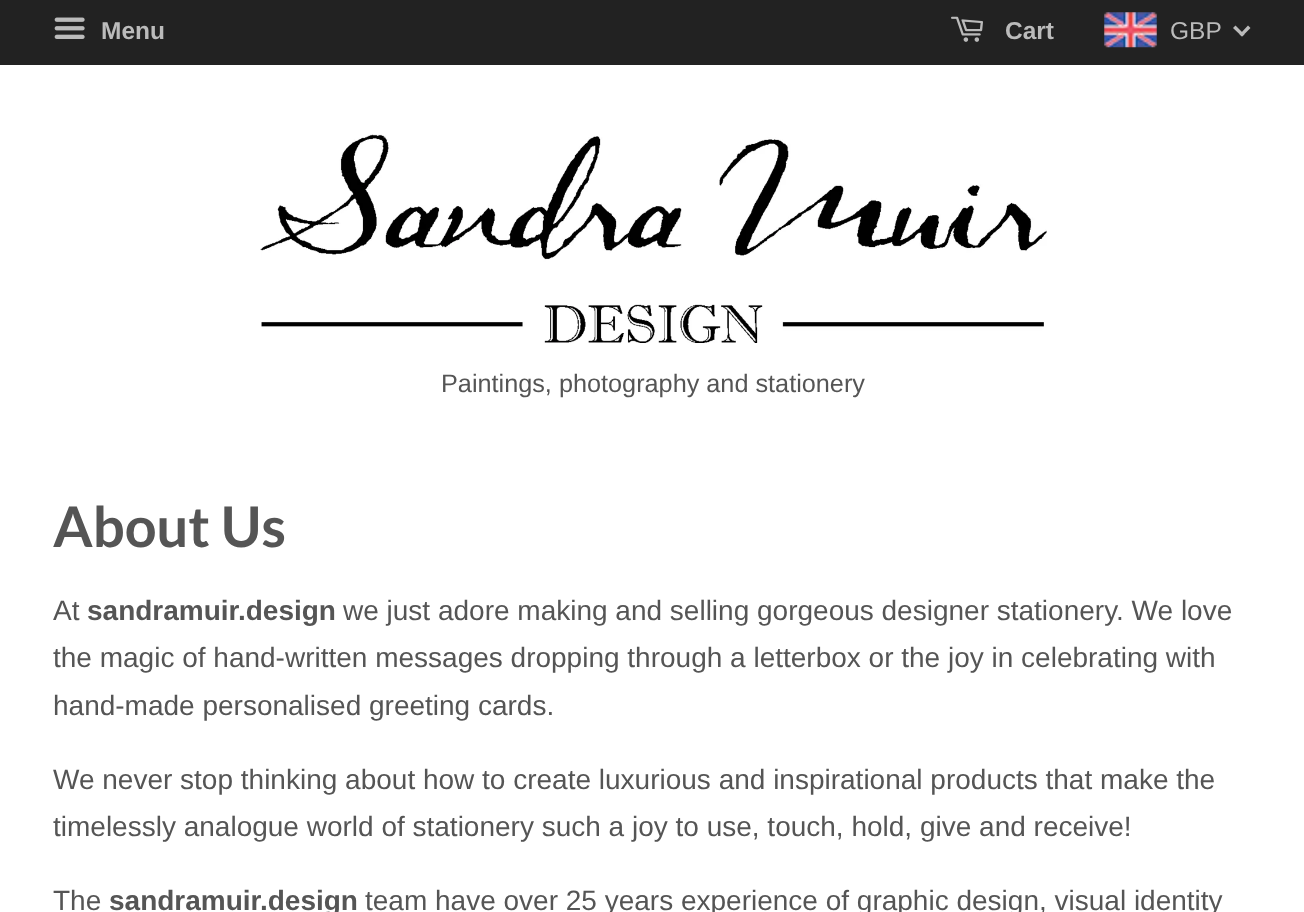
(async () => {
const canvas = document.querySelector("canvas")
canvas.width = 1304
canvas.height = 912
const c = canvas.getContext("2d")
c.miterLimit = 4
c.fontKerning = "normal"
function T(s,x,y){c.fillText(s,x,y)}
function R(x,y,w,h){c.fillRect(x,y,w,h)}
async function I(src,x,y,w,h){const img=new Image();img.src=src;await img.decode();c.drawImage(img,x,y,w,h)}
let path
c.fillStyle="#fff"
R(0,0,1304,912)
c.fillStyle="#222"
R(0,0,1304,65)
await I("1.png",54,17,31,22)
c.font="bold 24.5px Liberation Sans"
c.fillStyle="#bbb"
T("Menu",101,39)
await I("2.png",951,16,32,26)
T("Cart",1005,39)
await I("3.png",1104,12,53,36)
c.font="24.5px Liberation Sans"
T("GBP",1170,39)
path = new Path2D("M1248 25.5l2.5 2.5l-8.5 8.5l-2.5-2z")
c.fill(path)
path = new Path2D("M1235.5 25.5l9 9l-2.5 2l-9-8.5z")
c.fill(path)
await I("4.png",260,134,787,209)
c.font="25.25px Liberation Sans"
c.fillStyle="#555"
T("Paintings, photography and stationery",441,392)
c.font="bold 56px Lato"
T("About Us",53,547)
c.font="28px Liberation Sans"
T("At",53,620)
c.font="bold 28px Liberation Sans"
T("sandramuir.design",87,620)
c.font="28px Liberation Sans"
T("we just adore making and selling gorgeous designer stationery. We love",343,620)
T("the magic of hand-written messages dropping through a letterbox or the joy in celebrating with",53,667)
T("hand-made personalised greeting cards.",53,715)
T("We never stop thinking about how to create luxurious and inspirational products that make the",53,789)
T("timelessly analogue world of stationery such a joy to use, touch, hold, give and receive!",53,836)
T("The",53,910)
c.font="bold 28px Liberation Sans"
T("sandramuir.design",109,910)
c.font="28px Liberation Sans"
T("team have over 25 years experience of graphic design, visual identity",365,910)
})()
